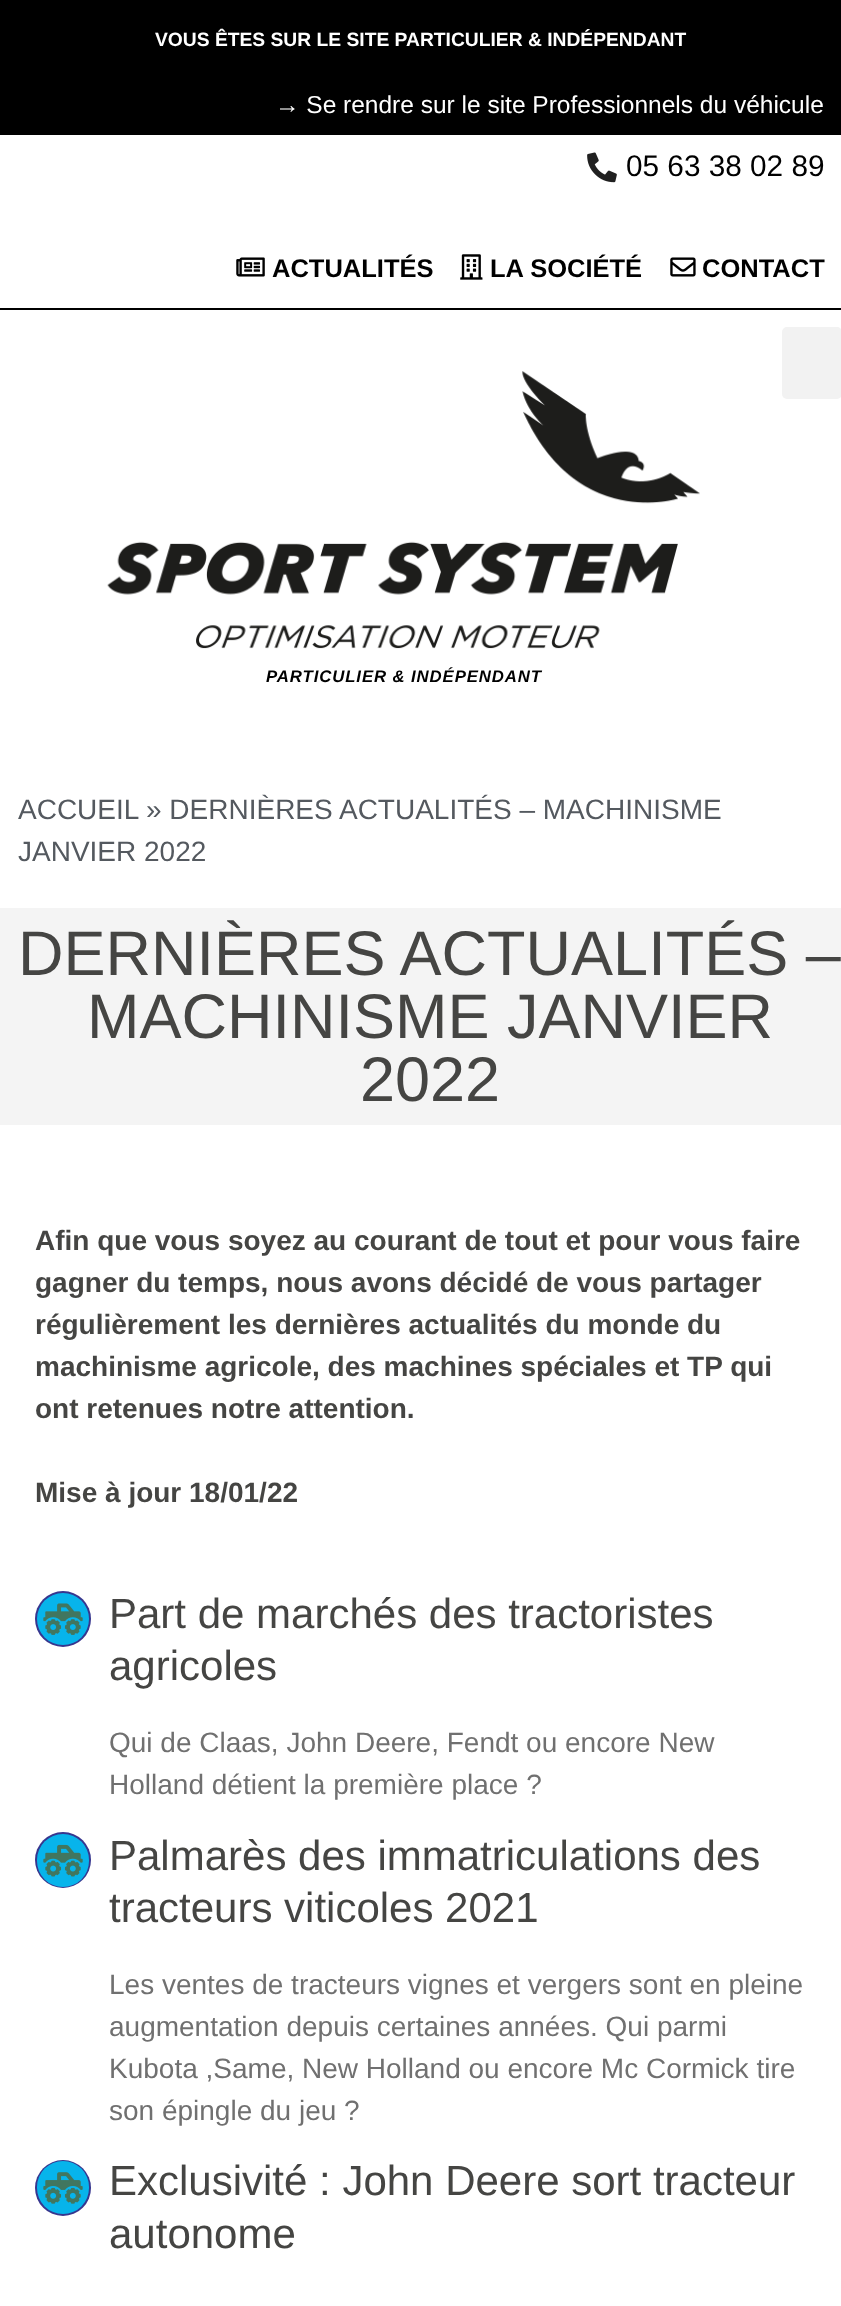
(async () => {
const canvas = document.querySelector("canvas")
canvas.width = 841
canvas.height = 2306
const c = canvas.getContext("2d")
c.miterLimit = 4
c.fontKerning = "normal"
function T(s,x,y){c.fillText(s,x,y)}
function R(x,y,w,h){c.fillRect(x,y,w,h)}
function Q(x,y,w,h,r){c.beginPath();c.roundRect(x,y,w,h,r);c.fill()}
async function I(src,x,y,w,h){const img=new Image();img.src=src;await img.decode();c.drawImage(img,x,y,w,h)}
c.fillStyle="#fff"
R(0,0,841,2306)
c.fillStyle="#000"
R(0,0,841,135)
c.font="bold 19.25px Liberation Sans"
c.fillStyle="#fff"
T("VOUS ÊTES SUR LE SITE PARTICULIER & INDÉPENDANT",155,46)
c.font="24.5px Liberation Sans"
T("→ Se rendre sur le site Professionnels du véhicule",275,113)
await I("1.png",587,152,30,31)
c.font="29.75px Liberation Sans"
c.fillStyle="#000"
T("05 63 38 02 89",626,176)
R(0,308,841,2)
await I("2.png",236,257,29,20)
c.font="bold 25.5px Liberation Sans"
T("ACTUALITÉS",272,277)
await I("3.png",460,254,23,26)
T("LA SOCIÉTÉ",490,277)
await I("4.png",670,257,26,20)
T("CONTACT",702,277)
c.fillStyle="#f2f2f2"
Q(782,327,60,72,5)
await I("5.png",107,371,593,278)
c.letterSpacing="0.9px"
c.font="italic bold 16.75px Liberation Sans"
c.fillStyle="#000"
T("PARTICULIER & INDÉPENDANT",266,682)
c.letterSpacing="0px"
c.font="28px Liberation Sans"
c.fillStyle="#54595f"
T("ACCUEIL",18,819)
T("» DERNIÈRES ACTUALITÉS – MACHINISME",146,819)
T("JANVIER 2022",18,861)
c.fillStyle="#f4f4f4"
R(0,908,841,217)
c.font="63px Liberation Sans"
c.fillStyle="#454543"
T("DERNIÈRES ACTUALITÉS –",18,975)
T("MACHINISME JANVIER",87,1038)
T("2022",360,1101)
c.font="bold 28px Liberation Sans"
T("Afin que vous soyez au courant de tout et pour vous faire",35,1250)
T("gagner du temps, nous avons décidé de vous partager",35,1292)
T("régulièrement les dernières actualités du monde du",35,1334)
T("machinisme agricole, des machines spéciales et TP qui",35,1376)
T("ont retenues notre attention.",35,1418)
T("Mise à jour 18/01/22",35,1502)
c.fillStyle="#37368e"
c.beginPath()
c.arc(63,1619,28,0,7)
c.fill()
c.fillStyle="#07b4eb"
c.beginPath()
c.arc(63,1619,26,0,7)
c.fill()
await I("6.png",43,1603,40,32)
c.font="42px Liberation Sans"
c.fillStyle="#454543"
T("Part de marchés des tractoristes",109,1628)
T("agricoles",109,1680)
c.font="28px Liberation Sans"
c.fillStyle="#707070"
T("Qui de Claas, John Deere, Fendt ou encore New",109,1752)
T("Holland détient la première place ?",109,1794)
c.fillStyle="#37368e"
c.beginPath()
c.arc(63,1860,28,0,7)
c.fill()
c.fillStyle="#07b4eb"
Q(37,1834,52,53,26)
await I("7.png",43,1844,40,33)
c.font="42px Liberation Sans"
c.fillStyle="#454543"
T("Palmarès des immatriculations des",109,1870)
T("tracteurs viticoles 2021",109,1922)
c.font="28px Liberation Sans"
c.fillStyle="#707070"
T("Les ventes de tracteurs vignes et vergers sont en pleine",109,1994)
T("augmentation depuis certaines années. Qui parmi",109,2036)
T("Kubota ,Same, New Holland ou encore Mc Cormick tire",109,2078)
T("son épingle du jeu ?",109,2120)
c.fillStyle="#37368e"
c.beginPath()
c.arc(63,2188,28,0,7)
c.fill()
c.fillStyle="#07b4eb"
Q(37,2161,52,53,26)
await I("8.png",43,2172,40,32)
c.font="42px Liberation Sans"
c.fillStyle="#454543"
T("Exclusivité : John Deere sort tracteur",109,2195)
T("autonome",109,2248)
})()
